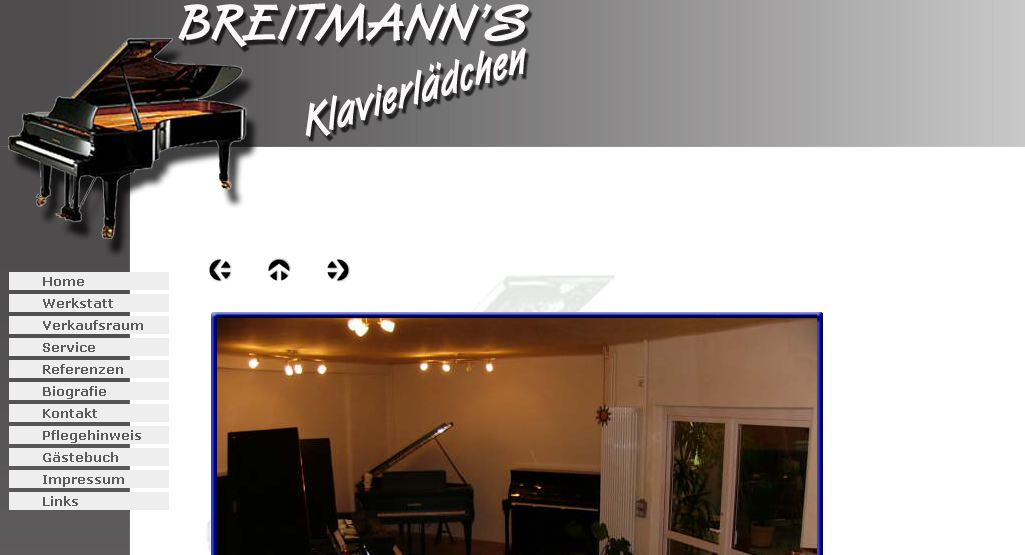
(async () => {
const canvas = document.querySelector("canvas")
canvas.width = 1025
canvas.height = 555
const c = canvas.getContext("2d")
c.miterLimit = 4
c.fontKerning = "normal"
function R(x,y,w,h){c.fillRect(x,y,w,h)}
async function I(src,x,y,w,h){const img=new Image();img.src=src;await img.decode();c.drawImage(img,x,y,w,h)}
c.fillStyle="#fff"
R(0,0,1025,555)
await I("1.png",0,0,1025,555)
await I("2.png",9,272,160,18)
await I("3.png",9,294,160,18)
await I("4.png",9,316,160,18)
await I("5.png",9,338,160,18)
await I("6.png",9,360,160,18)
await I("7.png",9,382,160,18)
await I("8.png",9,404,160,18)
await I("9.png",9,426,160,18)
await I("10.png",9,448,160,18)
await I("11.png",9,470,160,18)
await I("12.png",9,492,160,18)
await I("13.png",209,259,23,23)
await I("14.png",268,258,23,23)
await I("15.png",327,259,23,23)
await I("16.png",211,312,6,6)
await I("17.png",217,312,600,6)
await I("18.png",817,312,6,6)
await I("19.png",211,318,6,237)
await I("20.png",217,318,600,237)
await I("21.png",817,318,6,237)
})()
